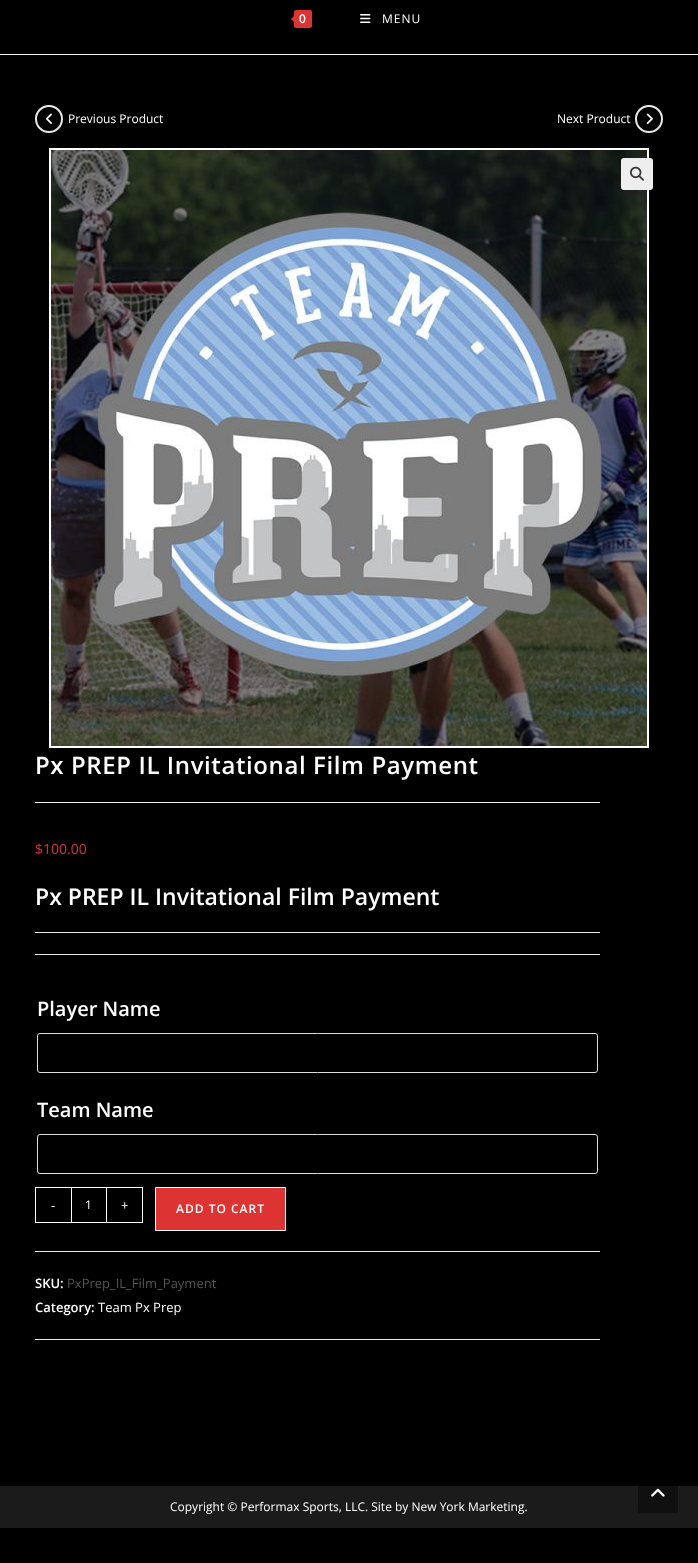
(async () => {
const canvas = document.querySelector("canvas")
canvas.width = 698
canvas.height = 1563
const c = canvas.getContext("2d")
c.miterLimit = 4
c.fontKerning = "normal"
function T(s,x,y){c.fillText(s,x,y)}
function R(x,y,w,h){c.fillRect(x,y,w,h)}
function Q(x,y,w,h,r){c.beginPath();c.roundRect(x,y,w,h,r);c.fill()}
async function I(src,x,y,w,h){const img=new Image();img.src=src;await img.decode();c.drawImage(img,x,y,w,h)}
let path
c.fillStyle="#000"
R(0,0,698,1563)
c.fillStyle="#f1f1f1"
R(0,54,698,1)
c.fillStyle="#d33"
Q(294,10,18,18,2)
path = new Path2D("M296 14v10l-5-5z")
c.fill(path)
c.letterSpacing="1px"
c.font="600 12px Open Sans"
c.fillStyle="#fff"
T("0",299,23)
await I("1.png",360,14,11,9)
c.font="12px Open Sans"
T("MENU",382,23)
c.beginPath()
c.arc(49,119,13,0,7)
c.strokeStyle="#e9e9e9"
c.lineWidth=2
c.stroke()
await I("2.png",45,113,7,11)
c.letterSpacing="0px"
T("Previous Product",68,123)
T("Next Product",557,123)
c.beginPath()
c.arc(649,119,13,0,7)
c.stroke()
await I("3.png",646,113,7,11)
await I("4.png",51,150,596,596)
c.strokeStyle="#fff"
c.strokeRect(50,149,598,598)
c.fillStyle="#eee"
Q(621,158,32,32,3)
await I("5.png",630,166,14,15)
c.fillStyle="#f1f1f1"
R(35,802,565,1)
c.letterSpacing="0.6px"
c.font="600 24px Open Sans"
c.fillStyle="#fff"
T("Px PREP IL Invitational Film Payment",35,774)
c.letterSpacing="0px"
c.font="14px Open Sans"
c.fillStyle="#d33"
T("$100.00",35,854)
c.font="600 23px Open Sans"
c.fillStyle="#fff"
T("Px PREP IL Invitational Film Payment",35,905)
c.fillStyle="#e9e9e9"
R(35,932,565,1)
c.fillStyle="#eaeaea"
R(35,954,565,1)
R(35,1251,565,1)
c.font="600 20px Open Sans"
c.fillStyle="#fff"
T("Player Name",37,1016)
c.beginPath()
c.roundRect(37.5,1033.5,560,39,2.5)
c.strokeStyle="#ddd"
c.lineWidth=1
c.stroke()
T("Team Name",37,1117)
c.beginPath()
c.roundRect(37.5,1134.5,560,39,2.5)
c.stroke()
R(35,1187,36,1)
R(35,1222,36,1)
R(35,1187,1,36)
c.font="13px Open Sans"
T("-",51,1210)
c.strokeStyle="#fff"
c.strokeRect(71.5,1187.5,35,35)
c.font="12px Open Sans"
T("1",85,1209)
R(107,1187,36,1)
R(142,1187,1,36)
R(107,1222,36,1)
c.font="13px Open Sans"
T("+",121,1210)
c.fillStyle="#d33"
c.beginPath()
c.rect(155.5,1187.5,130,43)
c.fill()
c.stroke()
c.letterSpacing="1px"
c.font="600 12px Open Sans"
c.fillStyle="#fff"
T("ADD TO CART",176,1213)
c.fillStyle="#eaeaea"
R(35,1339,565,1)
c.letterSpacing="0px"
c.font="600 13px Open Sans"
c.fillStyle="#fff"
T("SKU:",35,1288)
c.font="13px Open Sans"
c.fillStyle="#555"
T("PxPrep_IL_Film_Payment",67,1288)
c.font="600 13px Open Sans"
c.fillStyle="#fff"
T("Category:",35,1312)
c.font="13px Open Sans"
T("Team Px Prep",98,1312)
c.fillStyle="#1b1b1b"
R(0,1486,698,42)
c.font="12px Open Sans"
c.fillStyle="#fff"
T("Copyright © Performax Sports, LLC. Site by New York Marketing.",170,1511)
c.fillStyle="#00000066"
Q(638,1473,40,40,2)
await I("6.png",651,1488,14,9)
})()
